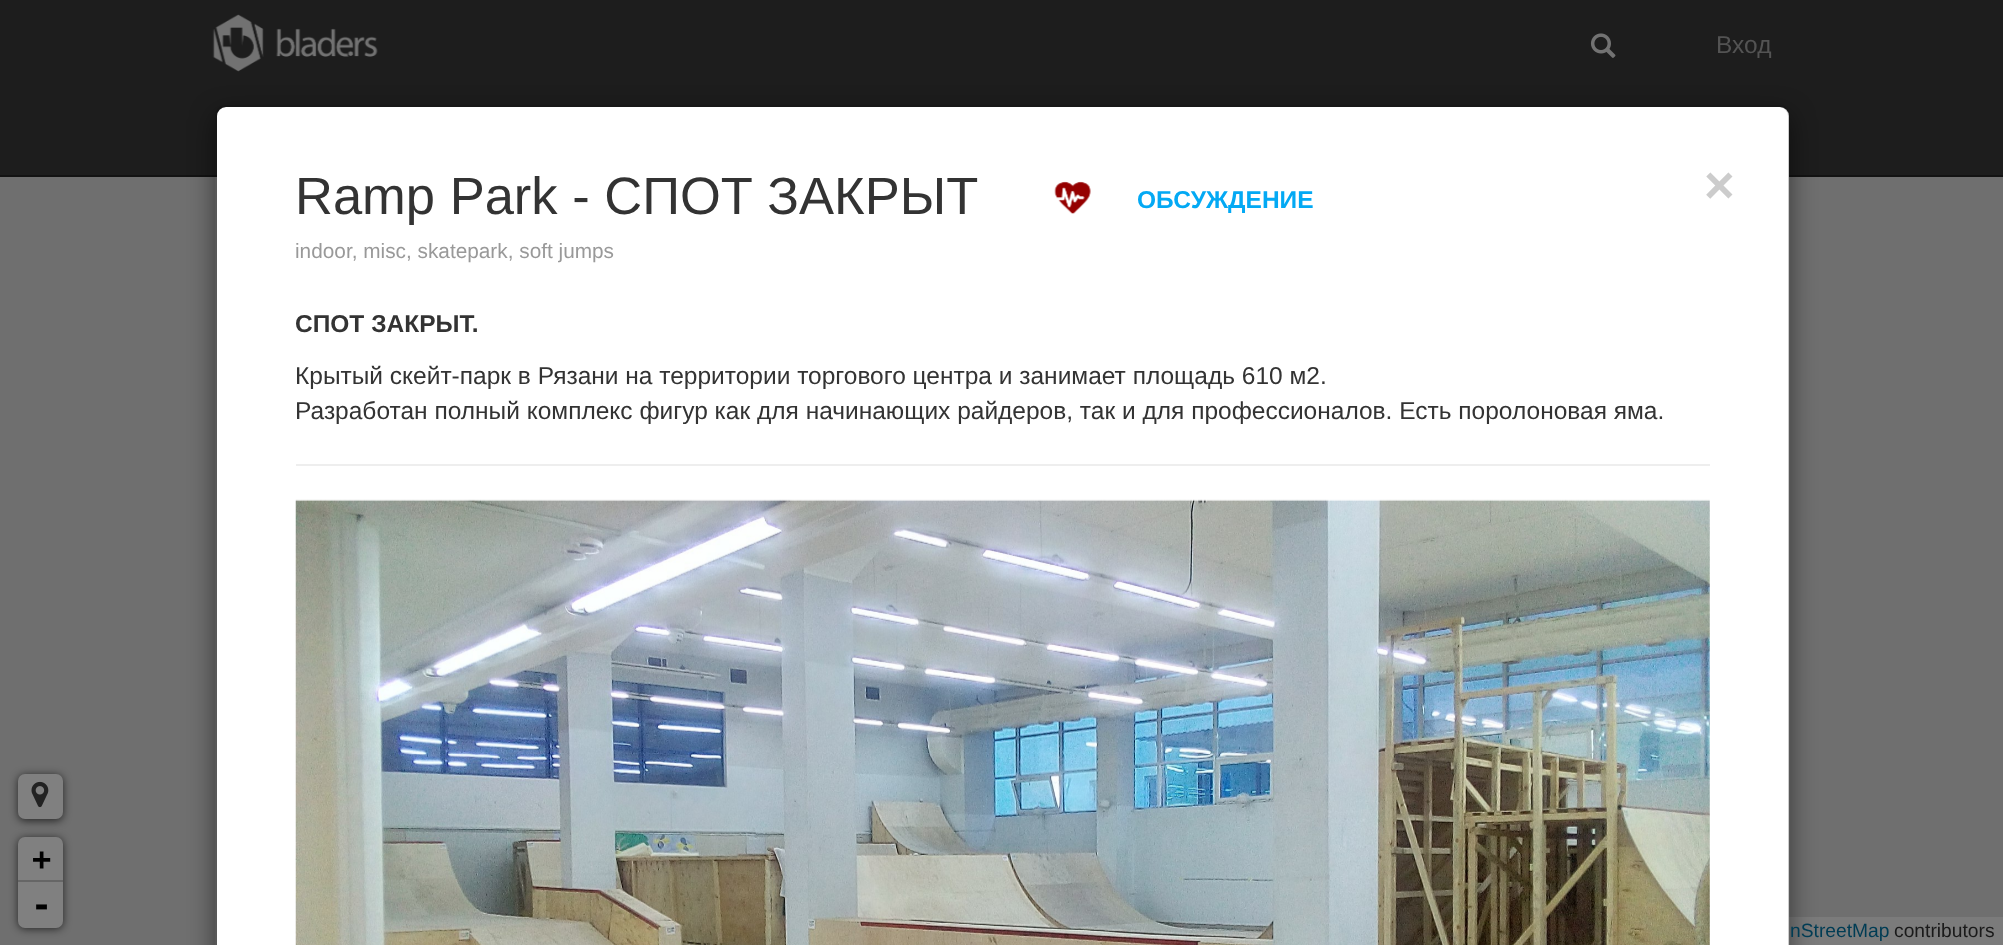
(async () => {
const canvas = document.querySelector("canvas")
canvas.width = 2003
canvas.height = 945
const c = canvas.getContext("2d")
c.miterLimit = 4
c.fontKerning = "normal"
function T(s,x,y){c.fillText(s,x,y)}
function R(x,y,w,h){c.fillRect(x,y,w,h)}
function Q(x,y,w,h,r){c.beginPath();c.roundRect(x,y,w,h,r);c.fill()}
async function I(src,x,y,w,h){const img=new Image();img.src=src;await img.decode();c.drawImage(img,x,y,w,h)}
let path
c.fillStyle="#6f6f6f"
R(0,0,2003,945)
c.fillStyle="#1d1d1d"
R(0,0,2003,175)
c.fillStyle="#131313"
R(0,175,2003,2)
await I("1.png",212,14,166,58)
await I("2.png",1590,33,26,25)
c.font="24.5px Liberation Sans"
c.fillStyle="#535353"
T("Вход",1716,53)
c.fillStyle="#7b7b7b"
R(1789,917,214,28)
c.save()
path = new Path2D("M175 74h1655v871h-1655zm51 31h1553c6 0 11 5 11 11v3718c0 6-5 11-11 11h-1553c-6 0-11-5-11-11v-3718c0-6 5-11 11-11z")
c.clip(path,"evenodd")
c.fillStyle="#00000080"
c.filter="blur(13px)"
c.beginPath()
c.roundRect(215,114,1575,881,11)
c.fill()
c.filter="none"
c.restore()
c.fillStyle="#fff"
c.beginPath()
c.roundRect(217,107,1572,838,[9,9,0,0])
c.fill()
c.beginPath()
c.roundRect(216,106,1573,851,10)
c.strokeStyle="#00000033"
c.lineWidth=2
c.stroke()
c.font="52.5px Liberation Sans"
c.fillStyle="#333"
T("Ramp Park - СПОТ ЗАКРЫТ",295,214)
await I("3.png",1054,181,37,33)
c.font="bold 24.5px Liberation Sans"
c.fillStyle="#03a9f4"
T("ОБСУЖДЕНИЕ",1137,208)
c.font="20.8px Liberation Sans"
c.fillStyle="#999"
T("indoor, misc, skatepark, soft jumps",295,258)
c.font="bold 52.5px Liberation Sans"
c.fillStyle="#ccc"
T("×",1704,203)
c.font="bold 24.5px Liberation Sans"
c.fillStyle="#333"
T("СПОТ ЗАКРЫТ.",295,332)
c.font="24.5px Liberation Sans"
T("Крытый скейт-парк в Рязани на территории торгового центра и занимает площадь 610 м2.",295,384)
T("Разработан полный комплекс фигур как для начинающих райдеров, так и для профессионалов. Есть поролоновая яма.",295,419)
c.fillStyle="#eee"
R(296,464,1414,2)
await I("4.png",295,499,1415,446)
c.fillStyle="#000000a6"
c.filter="blur(4.5px)"
c.beginPath()
c.roundRect(18,775,45,46,7)
c.fill()
c.filter="none"
c.fillStyle="#808080"
Q(18,774,45,45,7)
await I("5.png",31,781,18,27)
c.fillStyle="#000000a6"
c.filter="blur(4.5px)"
c.beginPath()
c.roundRect(18,838,45,91,7)
c.fill()
c.filter="none"
c.fillStyle="#808080"
c.beginPath()
c.roundRect(18,837,45,45,[7,7,0,0])
c.fill()
c.fillStyle="#666"
R(18,880,45,2)
c.font="bold 32px DejaVu Sans Mono"
c.fillStyle="#000"
T("+",32,870)
c.fillStyle="#808080"
c.beginPath()
c.roundRect(18,882,45,46,[0,0,7,7])
c.fill()
c.font="bold 35px DejaVu Sans Mono"
c.fillStyle="#000"
T("-",31,917)
c.font="19.25px Liberation Sans"
c.fillStyle="#003c54"
T("nStreetMap",1790,937)
c.fillStyle="#1a1a1a"
T("contributors",1894,937)
})()
